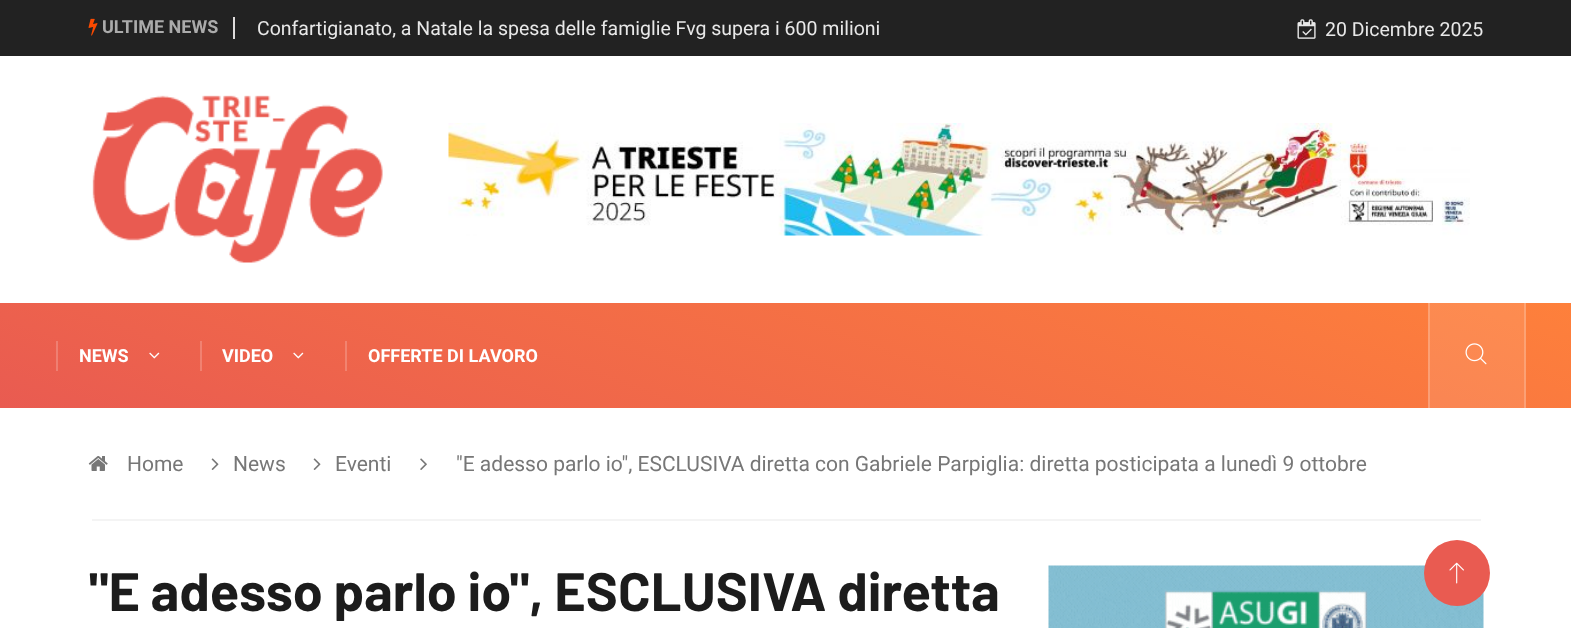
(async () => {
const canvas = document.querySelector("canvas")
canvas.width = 1571
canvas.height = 628
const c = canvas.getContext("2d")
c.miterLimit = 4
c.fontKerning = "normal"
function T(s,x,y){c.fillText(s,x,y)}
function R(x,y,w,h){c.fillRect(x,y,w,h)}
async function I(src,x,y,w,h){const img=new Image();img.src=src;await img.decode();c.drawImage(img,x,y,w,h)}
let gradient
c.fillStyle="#fff"
R(0,0,1571,628)
c.fillStyle="#222"
R(0,0,1571,56)
c.fillStyle="#dedbdb"
R(233,17,2,22)
await I("1.png",88,18,10,18)
c.font="bold 18px Roboto"
c.fillStyle="#ababab"
T("ULTIME NEWS",102,33)
c.font="19.5px Roboto"
c.fillStyle="#e8e8e8"
T("Confartigianato, a Natale la spesa delle famiglie Fvg supera i 600 milioni",257,35)
await I("2.png",1297,19,19,20)
T("20 Dicembre 2025",1325,36)
await I("3.png",92,95,291,168)
await I("4.png",448,123,1022,113)
gradient = c.createLinearGradient(677,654,895,57)
gradient.addColorStop(0,"#e95b51")
gradient.addColorStop(1,"#fe803b")
c.fillStyle = gradient
R(0,303,1571,105)
gradient = c.createLinearGradient(677,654,895,57)
gradient.addColorStop(0,"#eb6b62")
gradient.addColorStop(1,"#fe8d4f")
c.fillStyle = gradient
R(1430,303,94,105)
gradient = c.createLinearGradient(677,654,895,57)
gradient.addColorStop(0,"#ef8981")
gradient.addColorStop(1,"#fea472")
c.fillStyle = gradient
R(1428,303,2,105)
R(1524,303,2,105)
c.fillStyle="#ef7f72"
R(56,341,2,30)
c.font="bold 18px Roboto"
c.fillStyle="#fff"
T("NEWS",79,362)
await I("5.png",149,352,11,7)
c.fillStyle="#f18171"
R(200,341,2,30)
c.fillStyle="#fff"
T("VIDEO",222,362)
await I("6.png",293,352,11,7)
c.fillStyle="#f2836f"
R(345,341,2,30)
c.fillStyle="#fff"
T("OFFERTE DI LAVORO",368,362)
await I("7.png",1465,343,22,22)
c.fillStyle="#f4f4f4"
R(92,519,1389,2)
await I("8.png",88,456,20,15)
c.font="21px Roboto"
c.fillStyle="#777"
T("Home",127,471)
await I("9.png",211,458,8,12)
T("News",233,471)
await I("9.png",313,458,8,12)
T("Eventi",335,471)
await I("10.png",420,458,7,12)
T("\"E adesso parlo io\", ESCLUSIVA diretta con Gabriele Parpiglia: diretta posticipata a lunedì 9 ottobre",456,471)
c.font="bold 54px Barlow"
c.fillStyle="#1c1c1c"
T("\"E adesso parlo io\", ESCLUSIVA diretta",89,611)
await I("11.png",1048,565,436,63)
c.fillStyle="#e95b51"
c.beginPath()
c.arc(1457,573,33,0,7)
c.fill()
await I("12.png",1449,562,15,22)
})()
